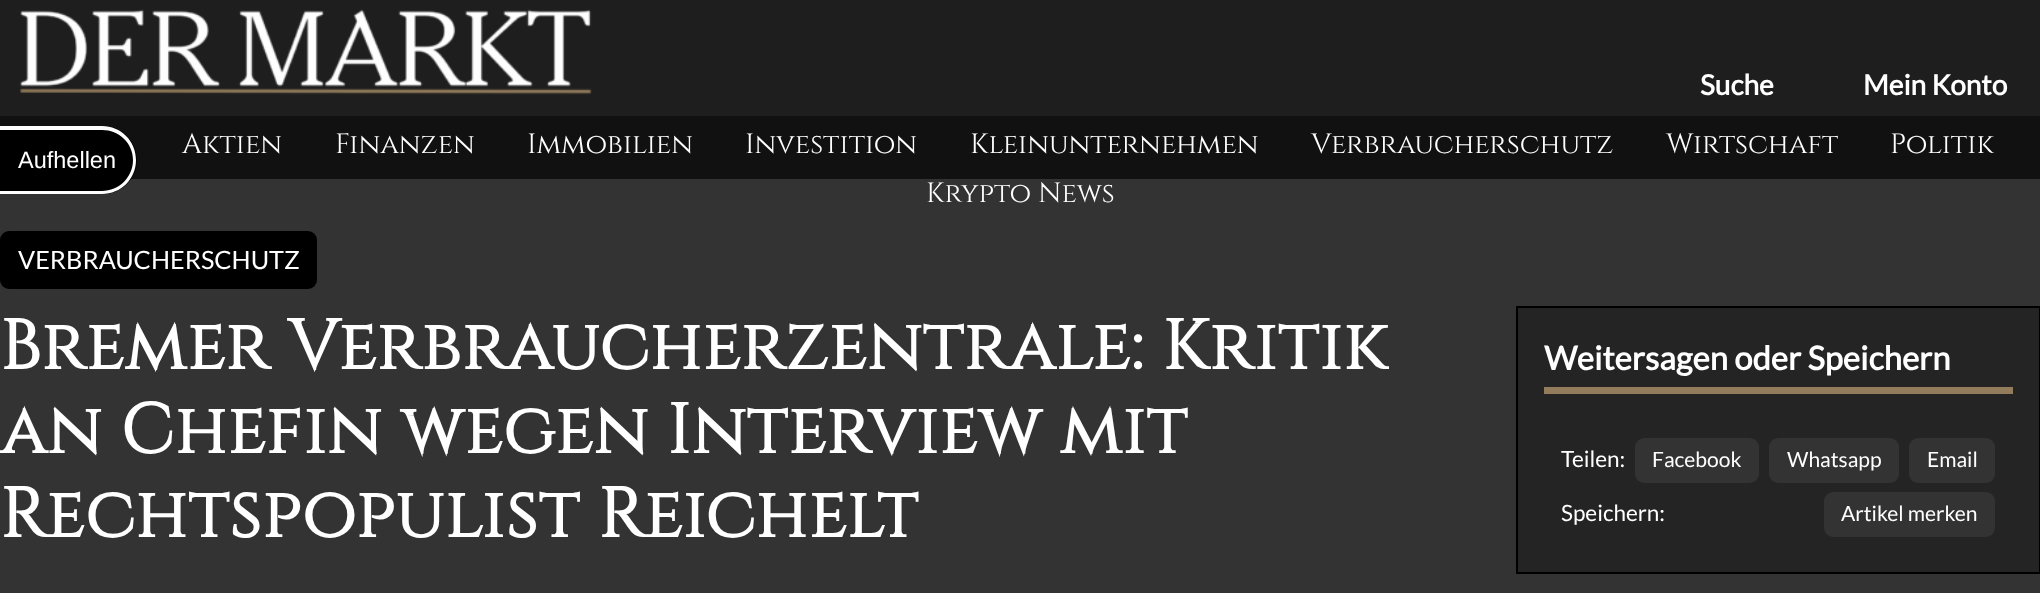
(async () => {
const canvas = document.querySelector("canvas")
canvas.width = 2040
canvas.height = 593
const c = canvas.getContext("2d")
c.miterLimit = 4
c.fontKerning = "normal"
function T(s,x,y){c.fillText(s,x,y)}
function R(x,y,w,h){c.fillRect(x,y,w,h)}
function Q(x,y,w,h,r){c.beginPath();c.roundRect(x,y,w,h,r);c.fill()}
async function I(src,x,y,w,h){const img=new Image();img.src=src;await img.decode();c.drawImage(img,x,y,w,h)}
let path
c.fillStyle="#333"
R(0,0,2040,593)
c.fillStyle="#1e1e1e"
R(0,0,2040,116)
await I("1.png",20,9,572,86)
c.font="bold 28px Lato"
c.fillStyle="#fff"
T("Suche",1700,95)
T("Mein Konto",1863,95)
c.fillStyle="#111"
R(0,116,2040,63)
c.font="28px Cinzel"
c.fillStyle="#fff"
T("Aktien",182,153)
T("Finanzen",335,153)
T("Immobilien",527,153)
T("Investition",745,153)
T("Kleinunternehmen",970,153)
T("Verbraucherschutz",1311,153)
T("Wirtschaft",1666,153)
T("Politik",1890,153)
T("Krypto News",926,202)
c.fillStyle="#000"
c.beginPath()
c.roundRect(0,126,137,68,[0,34,34,0])
c.fill()
c.fillStyle="#fff"
path = new Path2D("M0 126h102c19 0 34 15 34 34c0 19-15 34-34 34h-102zm0 4h102c17 0 31 13 31 30c0 17-14 31-31 31h-102z")
c.fill(path,"evenodd")
c.font="23.5px Liberation Sans"
T("Aufhellen",18,168)
c.letterSpacing="0.7px"
c.font="bold 70px Cinzel"
T("Bremer Verbraucherzentrale: Kritik",0,369)
T("an Chefin wegen Interview mit",0,453)
T("Rechtspopulist Reichelt",0,537)
c.fillStyle="#242424"
c.beginPath()
c.rect(1517,307,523,266)
c.fill()
c.strokeStyle="#000"
c.lineWidth=2
c.stroke()
c.fillStyle="#927c5b"
R(1544,387,469,7)
c.letterSpacing="0px"
c.font="bold 32.75px Lato"
c.fillStyle="#fff"
T("Weitersagen oder Speichern",1544,370)
c.font="22.5px Lato"
T("Teilen:",1561,467)
c.fillStyle="#333"
Q(1635,438,124,45,9)
c.font="21px Lato"
c.fillStyle="#fff"
T("Facebook",1652,467)
c.fillStyle="#333"
Q(1769,438,130,45,9)
c.fillStyle="#fff"
T("Whatsapp",1787,467)
c.fillStyle="#333"
Q(1909,438,86,45,9)
c.fillStyle="#fff"
T("Email",1927,467)
c.font="22.5px Lato"
T("Speichern:",1561,521)
c.fillStyle="#333"
Q(1824,492,171,45,9)
c.font="21px Lato"
c.fillStyle="#fff"
T("Artikel merken",1841,521)
c.fillStyle="#000"
Q(0,231,317,58,9)
c.font="25.25px Lato"
c.fillStyle="#fff"
T("VERBRAUCHERSCHUTZ",18,269)
})()
